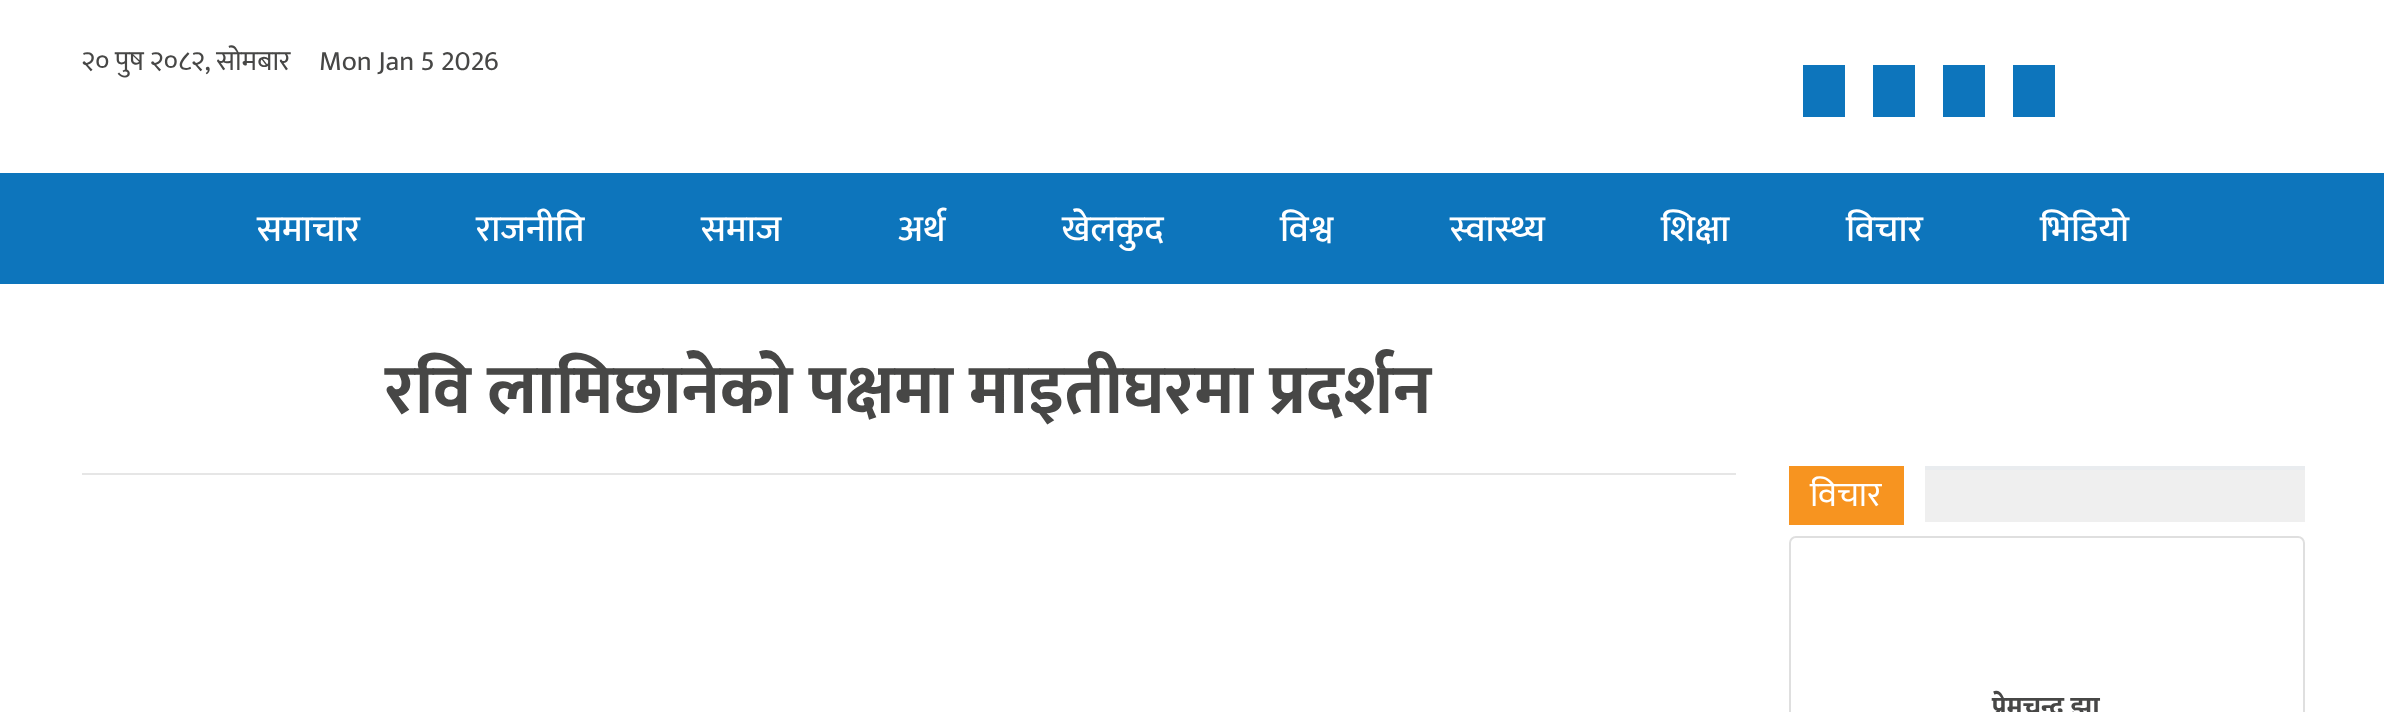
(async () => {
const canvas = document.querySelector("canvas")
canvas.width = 2384
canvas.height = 712
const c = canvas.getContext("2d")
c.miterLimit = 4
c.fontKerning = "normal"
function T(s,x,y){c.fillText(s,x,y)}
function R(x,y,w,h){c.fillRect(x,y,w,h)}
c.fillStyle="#fff"
R(0,0,2384,712)
c.wordSpacing="-0.5px"
c.font="28px Mukta"
c.fillStyle="#474746"
T("२० पुष २०८२, सोमबार",81,70)
c.wordSpacing="0px"
T("Mon Jan 5 2026",319,70)
c.fillStyle="#0d75bc"
R(1803,65,42,52)
R(1873,65,42,52)
R(1943,65,42,52)
R(2013,65,42,52)
R(0,173,2384,111)
c.font="500 37px Mukta"
c.fillStyle="#fff"
T("समाचार",257,241)
T("राजनीति",476,241)
T("समाज",701,241)
T("अर्थ",898,241)
T("खेलकुद",1062,241)
T("विश्व",1280,241)
T("स्वास्थ्य",1450,241)
T("शिक्षा",1661,241)
T("विचार",1846,241)
T("भिडियाे",2040,241)
c.font="bold 70px Mukta"
c.fillStyle="#474746"
T("रवि लामिछानेको पक्षमा माइतीघरमा प्रदर्शन",385,413)
c.fillStyle="#e6e6e6"
R(82,473,1654,2)
c.fillStyle="#efefef"
R(1925,470,380,52)
c.fillStyle="#e9ecef"
R(1925,466,380,4)
c.fillStyle="#f79420"
R(1789,466,115,59)
c.font="35px Mukta"
c.fillStyle="#fff"
T("विचार",1810,506)
c.beginPath()
c.roundRect(1790,537,514,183,6)
c.strokeStyle="#dfdfdf"
c.lineWidth=2
c.stroke()
c.font="bold 28px Mukta"
c.fillStyle="#474746"
T("प्रेमचन्द्र झा",1992,716)
})()
